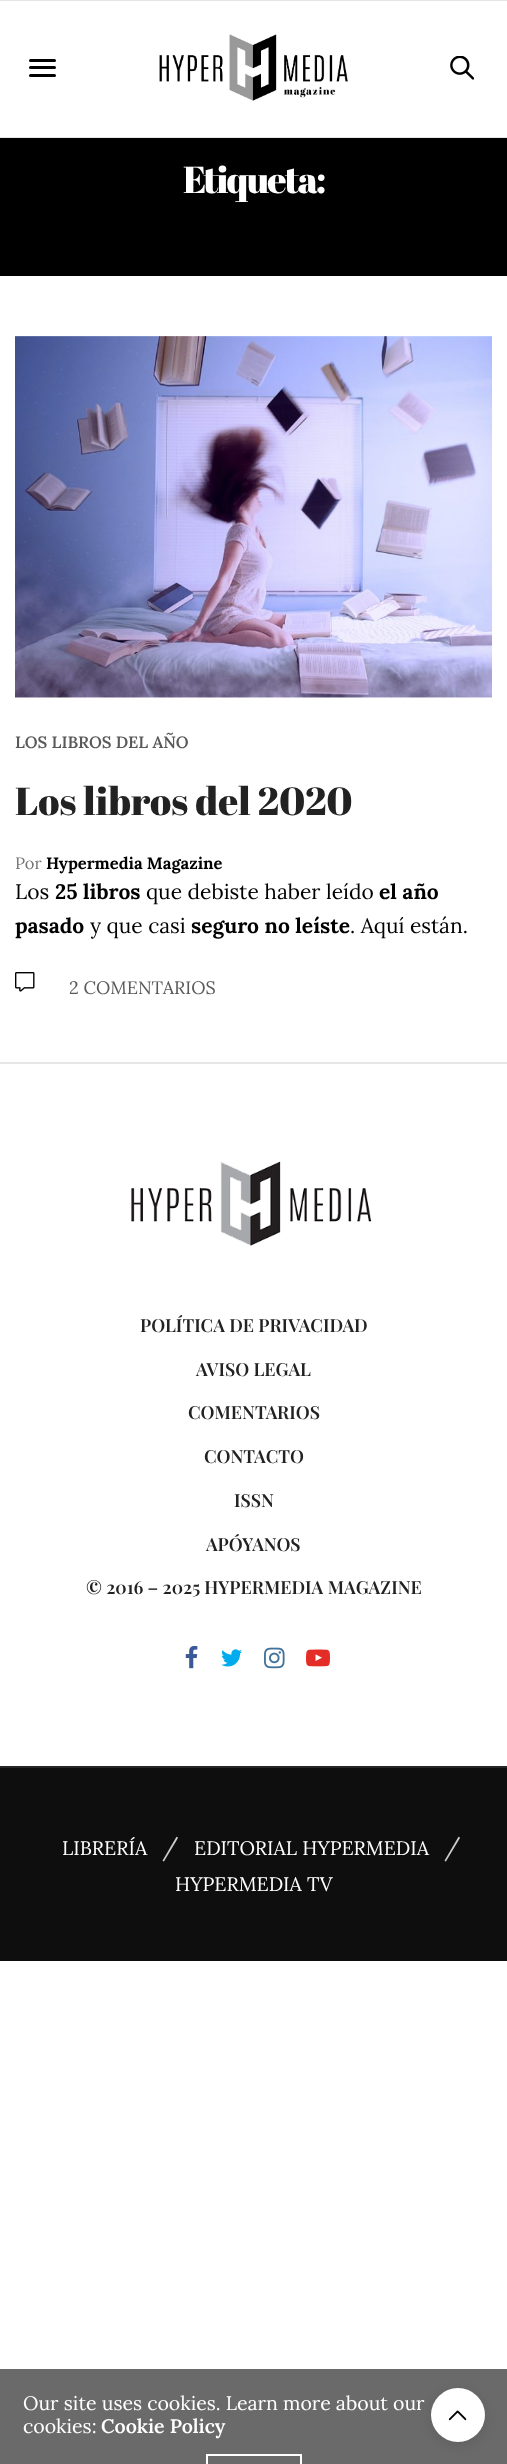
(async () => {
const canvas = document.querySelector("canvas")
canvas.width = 507
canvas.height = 2464
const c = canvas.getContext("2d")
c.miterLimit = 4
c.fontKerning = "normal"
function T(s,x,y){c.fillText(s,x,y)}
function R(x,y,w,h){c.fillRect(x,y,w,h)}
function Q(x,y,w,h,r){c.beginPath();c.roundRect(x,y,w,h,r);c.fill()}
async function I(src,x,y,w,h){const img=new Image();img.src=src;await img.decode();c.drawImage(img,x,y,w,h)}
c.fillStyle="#fff"
R(0,0,507,2464)
c.fillStyle="#e6e6e6"
R(0,0,507,1)
R(0,137,507,1)
c.fillStyle="#000"
Q(29,59,27,3,1.5)
Q(29,66,27,3,1.5)
Q(29,74,27,3,1.5)
await I("1.png",159,34,189,67)
await I("2.png",450,56,24,24)
R(0,138,507,138)
c.letterSpacing="-1.9px"
c.font="37.5px Abril Fatface"
c.fillStyle="#fff"
T("Etiqueta:",183,193)
await I("3.png",15,336,477,362)
c.letterSpacing="0px"
c.font="600 16.5px Lora"
c.fillStyle="#595959"
T("LOS LIBROS DEL AÑO",15,748)
c.font="39px Abril Fatface"
c.fillStyle="#222"
T("Los libros del 2020",15,815)
c.font="16.5px Lora"
c.fillStyle="#767676"
T("Por",15,869)
c.font="bold 16.5px Lora"
c.fillStyle="#000"
T("Hypermedia Magazine",46,869)
c.font="21px Lora"
T("Los",15,899)
c.font="bold 21px Lora"
T("25 libros",55,899)
c.font="21px Lora"
T("que debiste haber leído",146,899)
c.font="bold 21px Lora"
T("el año",379,899)
T("pasado",15,933)
c.font="21px Lora"
T("y que casi",90,933)
c.font="bold 21px Lora"
T("seguro no leíste",191,933)
c.font="21px Lora"
T(". Aquí están.",350,933)
await I("4.png",15,972,20,20)
c.font="18px Lora"
c.fillStyle="#595959"
T("2 COMENTARIOS",69,994)
c.fillStyle="#e6e6e6"
R(0,1062,507,2)
await I("5.png",131,1161,241,85)
c.font="600 18px Playfair Display"
c.fillStyle="#222"
T("POLÍTICA DE PRIVACIDAD",140,1332)
T("AVISO LEGAL",196,1376)
T("COMENTARIOS",188,1419)
T("CONTACTO",204,1463)
T("ISSN",234,1507)
T("APÓYANOS",206,1551)
T("© 2016 – 2025 HYPERMEDIA MAGAZINE",86,1594)
await I("6.png",185,1645,13,24)
await I("7.png",221,1649,21,18)
await I("8.png",264,1647,21,22)
await I("9.png",306,1649,24,18)
c.fillStyle="#0e0e0e"
R(0,1768,507,193)
c.fillStyle="#262626"
R(0,1766,507,2)
c.font="19.5px Lora"
c.fillStyle="#fff"
T("LIBRERÍA",62,1855)
c.font="24px Lora"
c.fillStyle="#ccc"
T("/",162,1855)
c.font="19.5px Lora"
c.fillStyle="#fff"
T("EDITORIAL HYPERMEDIA",194,1855)
c.font="24px Lora"
c.fillStyle="#ccc"
T("/",444,1855)
c.font="19.5px Lora"
c.fillStyle="#fff"
T("HYPERMEDIA TV",175,1891)
c.fillStyle="#6a6a6a"
R(0,2369,507,95)
c.fillStyle="#fff"
T("Our site uses cookies. Learn more about our",23,2410)
T("cookies:",23,2433)
c.font="600 19.5px Lora"
T("Cookie Policy",101,2433)
c.strokeStyle="#fff"
c.lineWidth=2
c.strokeRect(207,2455,94,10)
c.fillStyle="#0000001a"
c.filter="blur(6px)"
c.beginPath()
c.roundRect(431,2391,54,54,27)
c.fill()
c.filter="none"
c.fillStyle="#fff"
c.beginPath()
c.arc(458,2415,27,0,7)
c.fill()
await I("10.png",448,2410,19,11)
})()
